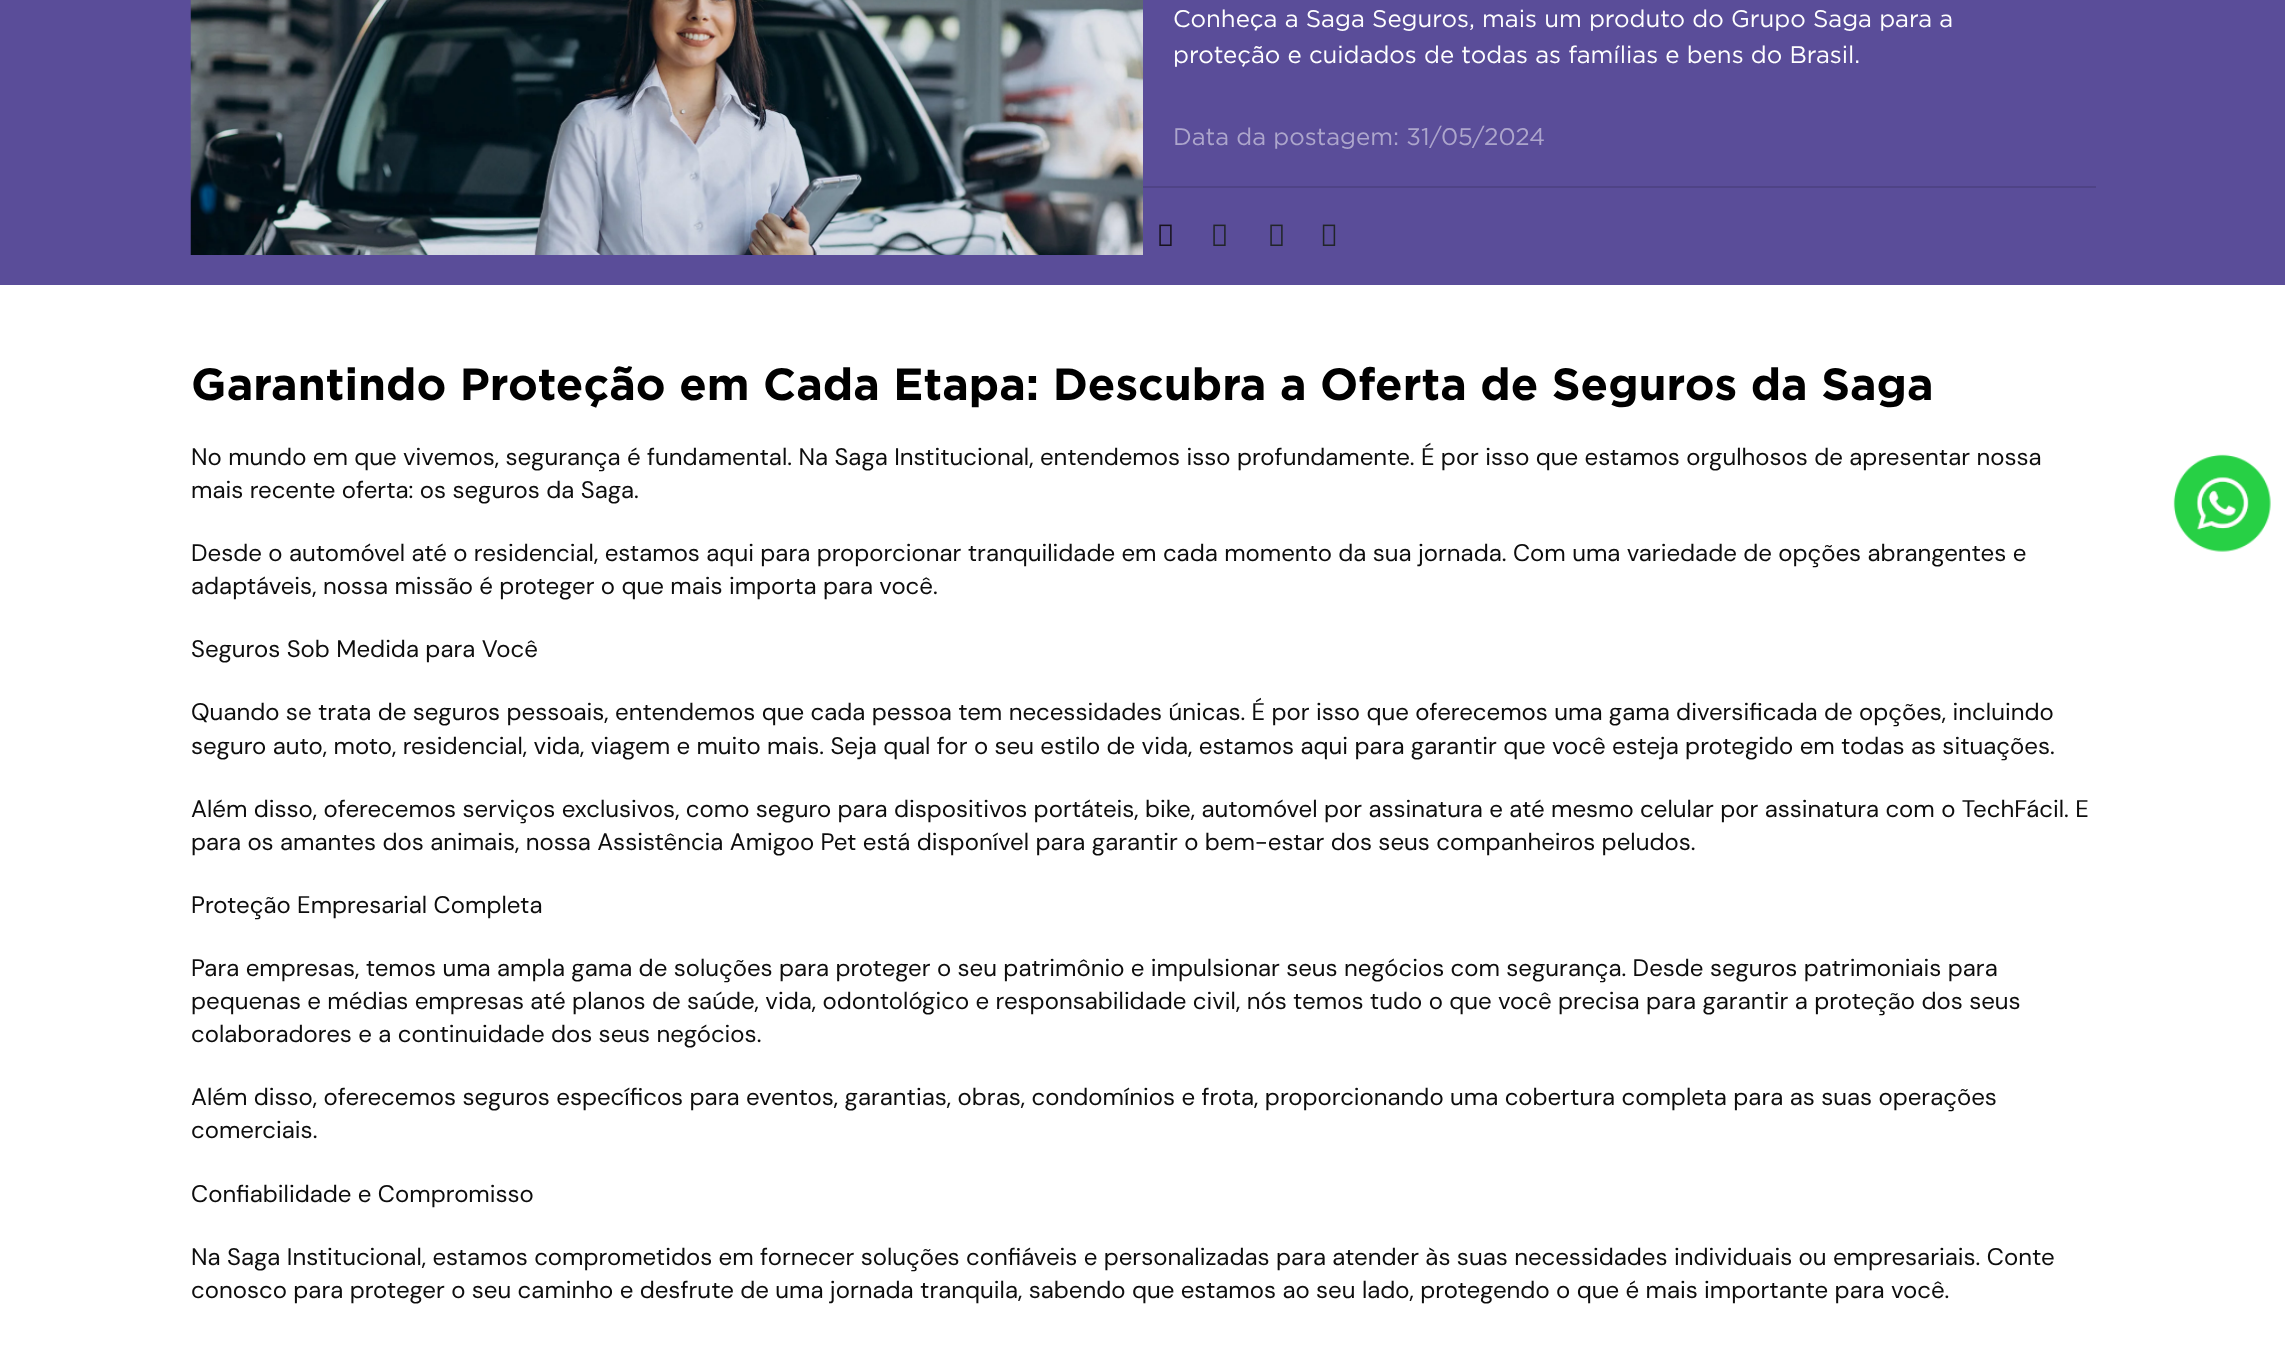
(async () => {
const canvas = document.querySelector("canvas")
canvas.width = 2285
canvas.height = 1364
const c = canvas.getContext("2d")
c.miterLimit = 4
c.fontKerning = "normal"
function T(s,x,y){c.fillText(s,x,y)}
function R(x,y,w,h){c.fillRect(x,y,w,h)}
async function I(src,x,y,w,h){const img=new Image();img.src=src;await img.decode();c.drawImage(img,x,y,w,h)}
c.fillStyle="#fff"
R(0,0,2285,1364)
c.fillStyle="#5a4d99"
R(0,0,2285,285)
await I("1.png",190,0,953,255)
c.font="24px Gotham"
c.fillStyle="#fff"
T("Conheça a Saga Seguros, mais um produto do Grupo Saga para a",1173,27)
T("proteção e cuidados de todas as famílias e bens do Brasil.",1173,63)
c.fillStyle="#ada6cc"
T("Data da postagem: 31/05/2024",1173,145)
c.fillStyle="#4f4386"
R(1143,186,953,2)
await I("2.png",1159,224,13,22)
await I("3.png",1213,224,13,22)
await I("3.png",1270,224,13,22)
await I("4.png",1322,224,14,22)
c.font="bold 45px Gotham"
c.fillStyle="#000"
T("Garantindo Proteção em Cada Etapa: Descubra a Oferta de Seguros da Saga",191,400)
c.font="24px DM Sans"
c.fillStyle="#0d0d0d"
T("No mundo em que vivemos, segurança é fundamental. Na Saga Institucional, entendemos isso profundamente. É por isso que estamos orgulhosos de apresentar nossa",191,465)
T("mais recente oferta: os seguros da Saga.",191,498)
T("Desde o automóvel até o residencial, estamos aqui para proporcionar tranquilidade em cada momento da sua jornada. Com uma variedade de opções abrangentes e",191,561)
T("adaptáveis, nossa missão é proteger o que mais importa para você.",191,594)
T("Seguros Sob Medida para Você",191,657)
T("Quando se trata de seguros pessoais, entendemos que cada pessoa tem necessidades únicas. É por isso que oferecemos uma gama diversificada de opções, incluindo",191,720)
T("seguro auto, moto, residencial, vida, viagem e muito mais. Seja qual for o seu estilo de vida, estamos aqui para garantir que você esteja protegido em todas as situações.",191,754)
T("Além disso, oferecemos serviços exclusivos, como seguro para dispositivos portáteis, bike, automóvel por assinatura e até mesmo celular por assinatura com o TechFácil. E",191,817)
T("para os amantes dos animais, nossa Assistência Amigoo Pet está disponível para garantir o bem-estar dos seus companheiros peludos.",191,850)
T("Proteção Empresarial Completa",191,913)
T("Para empresas, temos uma ampla gama de soluções para proteger o seu patrimônio e impulsionar seus negócios com segurança. Desde seguros patrimoniais para",191,976)
T("pequenas e médias empresas até planos de saúde, vida, odontológico e responsabilidade civil, nós temos tudo o que você precisa para garantir a proteção dos seus",191,1009)
T("colaboradores e a continuidade dos seus negócios.",191,1042)
T("Além disso, oferecemos seguros específicos para eventos, garantias, obras, condomínios e frota, proporcionando uma cobertura completa para as suas operações",191,1105)
T("comerciais.",191,1138)
T("Confiabilidade e Compromisso",191,1202)
T("Na Saga Institucional, estamos comprometidos em fornecer soluções confiáveis e personalizadas para atender às suas necessidades individuais ou empresariais. Conte",191,1265)
T("conosco para proteger o seu caminho e desfrute de uma jornada tranquila, sabendo que estamos ao seu lado, protegendo o que é mais importante para você.",191,1298)
await I("5.png",2173,454,98,98)
})()
